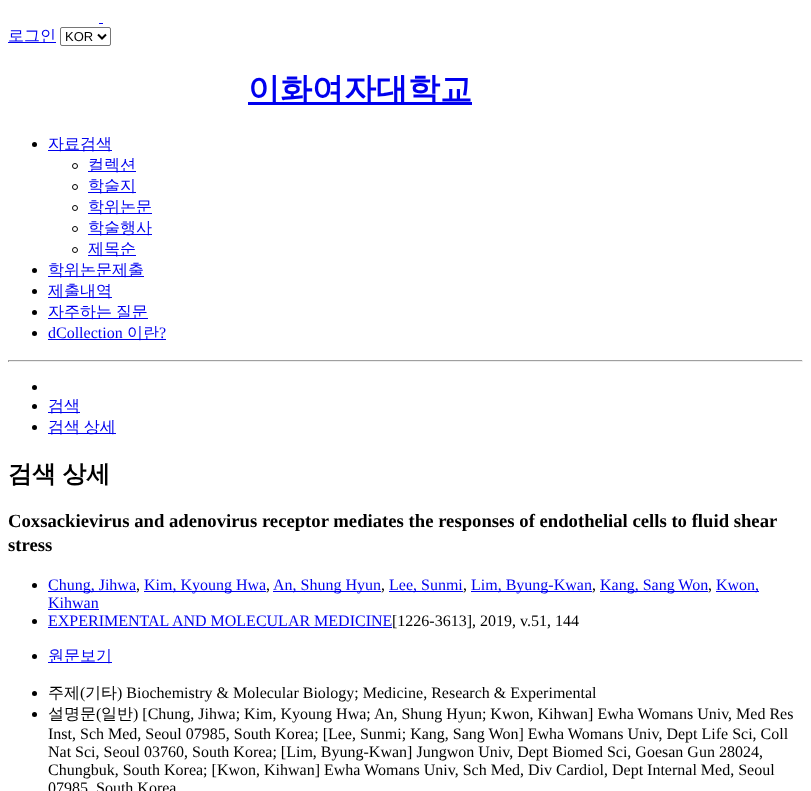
(async () => {
const canvas = document.querySelector("canvas")
canvas.width = 811
canvas.height = 791
const c = canvas.getContext("2d")
c.miterLimit = 4
c.fontKerning = "normal"
function T(s,x,y){c.fillText(s,x,y)}
function R(x,y,w,h){c.fillRect(x,y,w,h)}
let path
c.fillStyle="#fff"
R(0,0,811,791)
c.fillStyle="#00e"
R(99,23,4,1)
R(8,42,48,1)
c.font="500 16px WenQuanYi Zen Hei"
T("로그인",8,41)
c.beginPath()
c.roundRect(60.5,27.5,50,18,1.5)
c.strokeStyle="#767676"
c.stroke()
path = new Path2D("M98 34.5l4 4l4-4")
c.strokeStyle="#000"
c.lineWidth=2
c.stroke(path)
c.font="13px Liberation Sans"
c.fillStyle="#000"
T("KOR",65,41)
c.fillStyle="#00e"
R(248,102,224,3)
c.font="bold 32px WenQuanYi Zen Hei"
T("이화여자대학교",248,100)
c.fillStyle="#000"
c.beginPath()
c.arc(34.5,144.5,2.5,0,7)
c.fill()
c.fillStyle="#00e"
R(48,150,64,1)
c.font="500 16px WenQuanYi Zen Hei"
T("자료검색",48,149)
c.beginPath()
c.arc(75,166,2.5,0,7)
c.lineWidth=1
c.stroke()
R(88,171,48,1)
T("컬렉션",88,170)
c.beginPath()
c.arc(75,187,2.5,0,7)
c.stroke()
R(88,192,48,1)
T("학술지",88,191)
c.beginPath()
c.arc(75,208,2.5,0,7)
c.stroke()
R(88,213,64,1)
T("학위논문",88,212)
c.beginPath()
c.arc(75,229,2.5,0,7)
c.stroke()
R(88,234,64,1)
T("학술행사",88,233)
c.beginPath()
c.arc(75,250,2.5,0,7)
c.stroke()
R(88,255,48,1)
T("제목순",88,254)
c.fillStyle="#000"
c.beginPath()
c.arc(34.5,270.5,2.5,0,7)
c.fill()
c.fillStyle="#00e"
R(48,276,96,1)
T("학위논문제출",48,275)
c.fillStyle="#000"
c.beginPath()
c.arc(34.5,291.5,2.5,0,7)
c.fill()
c.fillStyle="#00e"
R(48,297,64,1)
T("제출내역",48,296)
c.fillStyle="#000"
c.beginPath()
c.arc(34.5,312.5,2.5,0,7)
c.fill()
c.fillStyle="#00e"
R(48,318,100,1)
c.wordSpacing="-1px"
T("자주하는 질문",48,317)
c.fillStyle="#000"
c.beginPath()
c.arc(34.5,333.5,2.5,0,7)
c.fill()
c.wordSpacing="0px"
c.font="16px Liberation Serif"
c.fillStyle="#00e"
T("dCollection",48,338)
R(48,339,118,1)
c.font="500 16px WenQuanYi Zen Hei"
T("이란",127,338)
c.font="16px Liberation Serif"
T("?",159,338)
c.fillStyle="#9f9f9f"
R(8,360,795,1)
c.fillStyle="#eee"
R(802,360,1,2)
R(8,361,795,1)
c.fillStyle="#9f9f9f"
R(8,360,1,2)
c.fillStyle="#000"
c.beginPath()
c.arc(34.5,387.5,2.5,0,7)
c.fill()
c.beginPath()
c.arc(34.5,406.5,2.5,0,7)
c.fill()
c.fillStyle="#00e"
R(48,412,32,1)
c.font="500 16px WenQuanYi Zen Hei"
T("검색",48,411)
c.fillStyle="#000"
c.beginPath()
c.arc(34.5,427.5,2.5,0,7)
c.fill()
c.fillStyle="#00e"
R(48,433,68,1)
c.wordSpacing="-1px"
T("검색 상세",48,432)
c.font="bold 24px WenQuanYi Zen Hei"
c.fillStyle="#000"
T("검색 상세",8,482)
c.wordSpacing="0px"
c.font="bold 18.7px Liberation Serif"
T("Coxsackievirus and adenovirus receptor mediates the responses of endothelial cells to fluid shear",8,527)
T("stress",8,551)
c.beginPath()
c.arc(34.5,585.5,2.5,0,7)
c.fill()
c.fillStyle="#00e"
R(48,591,88,1)
c.font="16px Liberation Serif"
T("Chung, Jihwa",48,590)
R(144,591,122,1)
T("Kim, Kyoung Hwa",144,590)
R(273,591,108,1)
T("An, Shung Hyun",273,590)
R(389,591,74,1)
T("Lee, Sunmi",389,590)
R(471,591,121,1)
T("Lim, Byung-Kwan",471,590)
R(600,591,108,1)
T("Kang, Sang Won",600,590)
R(716,591,43,1)
T("Kwon,",716,590)
c.fillStyle="#000"
T(",",136,590)
T(",",266,590)
T(",",381,590)
T(",",463,590)
T(",",592,590)
T(",",708,590)
c.fillStyle="#00e"
T("Kihwan",48,608)
R(48,609,51,1)
c.fillStyle="#000"
c.beginPath()
c.arc(34.5,621.5,2.5,0,7)
c.fill()
c.fillStyle="#00e"
T("EXPERIMENTAL AND MOLECULAR MEDICINE",48,626)
R(48,627,344,1)
c.fillStyle="#000"
T("[1226-3613], 2019, v.51, 144",392,626)
c.beginPath()
c.arc(34.5,656.5,2.5,0,7)
c.fill()
c.fillStyle="#00e"
R(48,662,64,1)
c.font="500 16px WenQuanYi Zen Hei"
T("원문보기",48,661)
c.fillStyle="#000"
c.beginPath()
c.arc(34.5,693.5,2.5,0,7)
c.fill()
T("주제",48,698)
c.font="16px Liberation Serif"
T("(",80,698)
c.font="500 16px WenQuanYi Zen Hei"
T("기타",85,698)
c.font="16px Liberation Serif"
T(") Biochemistry & Molecular Biology; Medicine, Research & Experimental",117,698)
c.beginPath()
c.arc(34.5,714.5,2.5,0,7)
c.fill()
c.font="500 16px WenQuanYi Zen Hei"
T("설명문",48,719)
c.font="16px Liberation Serif"
T("(",96,719)
c.font="500 16px WenQuanYi Zen Hei"
T("일반",101,719)
c.font="16px Liberation Serif"
T(") [Chung, Jihwa; Kim, Kyoung Hwa; An, Shung Hyun; Kwon, Kihwan] Ewha Womans Univ, Med Res",133,719)
T("Inst, Sch Med, Seoul 07985, South Korea; [Lee, Sunmi; Kang, Sang Won] Ewha Womans Univ, Dept Life Sci, Coll",48,739)
T("Nat Sci, Seoul 03760, South Korea; [Lim, Byung-Kwan] Jungwon Univ, Dept Biomed Sci, Goesan Gun 28024,",48,757)
T("Chungbuk, South Korea; [Kwon, Kihwan] Ewha Womans Univ, Sch Med, Div Cardiol, Dept Internal Med, Seoul",48,775)
T("07985, South Korea",48,793)
})()
